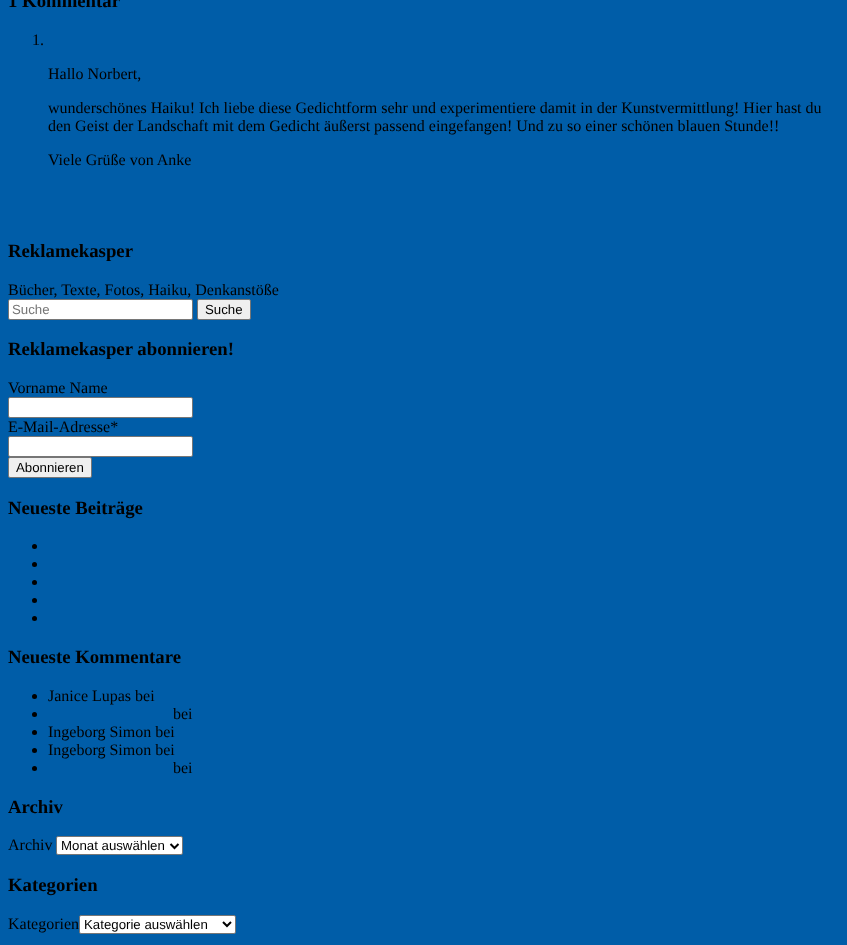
(async () => {
const canvas = document.querySelector("canvas")
canvas.width = 847
canvas.height = 945
const c = canvas.getContext("2d")
c.miterLimit = 4
c.fontKerning = "normal"
function T(s,x,y){c.fillText(s,x,y)}
function R(x,y,w,h){c.fillRect(x,y,w,h)}
let path
c.fillStyle="#005da8"
R(0,0,847,945)
c.font="bold 18.75px Liberation Serif"
c.fillStyle="#000"
T("1 Kommentar",8,7)
c.font="16px Liberation Serif"
T("1.",32,45)
T("Hallo Norbert,",48,79)
T("wunderschönes Haiku! Ich liebe diese Gedichtform sehr und experimentiere damit in der Kunstvermittlung! Hier hast du",48,113)
T("den Geist der Landschaft mit dem Gedicht äußerst passend eingefangen! Und zu so einer schönen blauen Stunde!!",48,131)
T("Viele Grüße von Anke",48,165)
c.font="bold 18.75px Liberation Serif"
T("Reklamekasper",8,257)
c.font="16px Liberation Serif"
T("Bücher, Texte, Fotos, Haiku, Denkanstöße",8,295)
c.fillStyle="#fff"
c.beginPath()
c.roundRect(8.5,299.5,184,20,1.5)
c.fill()
c.strokeStyle="#767676"
c.stroke()
c.font="13.25px Liberation Sans"
c.fillStyle="#757575"
T("Suche",12,314)
c.fillStyle="#efefef"
c.beginPath()
c.roundRect(197.5,299.5,53,20,1.5)
c.fill()
c.stroke()
c.fillStyle="#000"
T("Suche",205,314)
c.font="bold 18.75px Liberation Serif"
T("Reklamekasper abonnieren!",8,355)
c.font="16px Liberation Serif"
T("Vorname Name",8,393)
c.fillStyle="#fff"
c.beginPath()
c.roundRect(8.5,397.5,184,20,1.5)
c.fill()
c.stroke()
c.fillStyle="#000"
T("E-Mail-Adresse*",8,432)
c.fillStyle="#fff"
c.beginPath()
c.roundRect(8.5,436.5,184,20,1.5)
c.fill()
c.stroke()
c.fillStyle="#efefef"
c.beginPath()
c.roundRect(8.5,457.5,83,20,1.5)
c.fill()
c.stroke()
c.font="13.25px Liberation Sans"
c.fillStyle="#000"
T("Abonnieren",16,472)
c.font="bold 18.75px Liberation Serif"
T("Neueste Beiträge",8,514)
c.beginPath()
c.arc(34.5,546.5,2.5,0,7)
c.fill()
c.beginPath()
c.arc(34.5,564.5,2.5,0,7)
c.fill()
c.beginPath()
c.arc(34.5,582.5,2.5,0,7)
c.fill()
c.beginPath()
c.arc(34.5,600.5,2.5,0,7)
c.fill()
c.beginPath()
c.arc(34.5,618.5,2.5,0,7)
c.fill()
T("Neueste Kommentare",8,663)
c.beginPath()
c.arc(34.5,696.5,2.5,0,7)
c.fill()
c.font="16px Liberation Serif"
T("Janice Lupas bei",48,701)
c.beginPath()
c.arc(34.5,714.5,2.5,0,7)
c.fill()
T("bei",173,719)
c.beginPath()
c.arc(34.5,732.5,2.5,0,7)
c.fill()
T("Ingeborg Simon bei",48,737)
c.beginPath()
c.arc(34.5,750.5,2.5,0,7)
c.fill()
T("Ingeborg Simon bei",48,755)
c.beginPath()
c.arc(34.5,768.5,2.5,0,7)
c.fill()
T("bei",173,773)
c.font="bold 18.75px Liberation Serif"
T("Archiv",8,813)
c.font="16px Liberation Serif"
T("Archiv",8,850)
c.fillStyle="#fff"
c.beginPath()
c.roundRect(56.5,836.5,126,18,1.5)
c.fill()
c.stroke()
path = new Path2D("M170.5 844l4 4l4-4")
c.strokeStyle="#000"
c.lineWidth=2
c.stroke(path)
c.font="13.25px Liberation Sans"
c.fillStyle="#000"
T("Monat auswählen",61,850)
c.font="bold 18.75px Liberation Serif"
T("Kategorien",8,891)
c.font="16px Liberation Serif"
T("Kategorien",8,929)
c.fillStyle="#fff"
c.beginPath()
c.roundRect(79.5,915.5,156,18,1.5)
c.fill()
c.strokeStyle="#767676"
c.lineWidth=1
c.stroke()
path = new Path2D("M223 922l4 4l4-4")
c.strokeStyle="#000"
c.lineWidth=2
c.stroke(path)
c.font="13.25px Liberation Sans"
c.fillStyle="#000"
T("Kategorie auswählen",84,929)
})()
